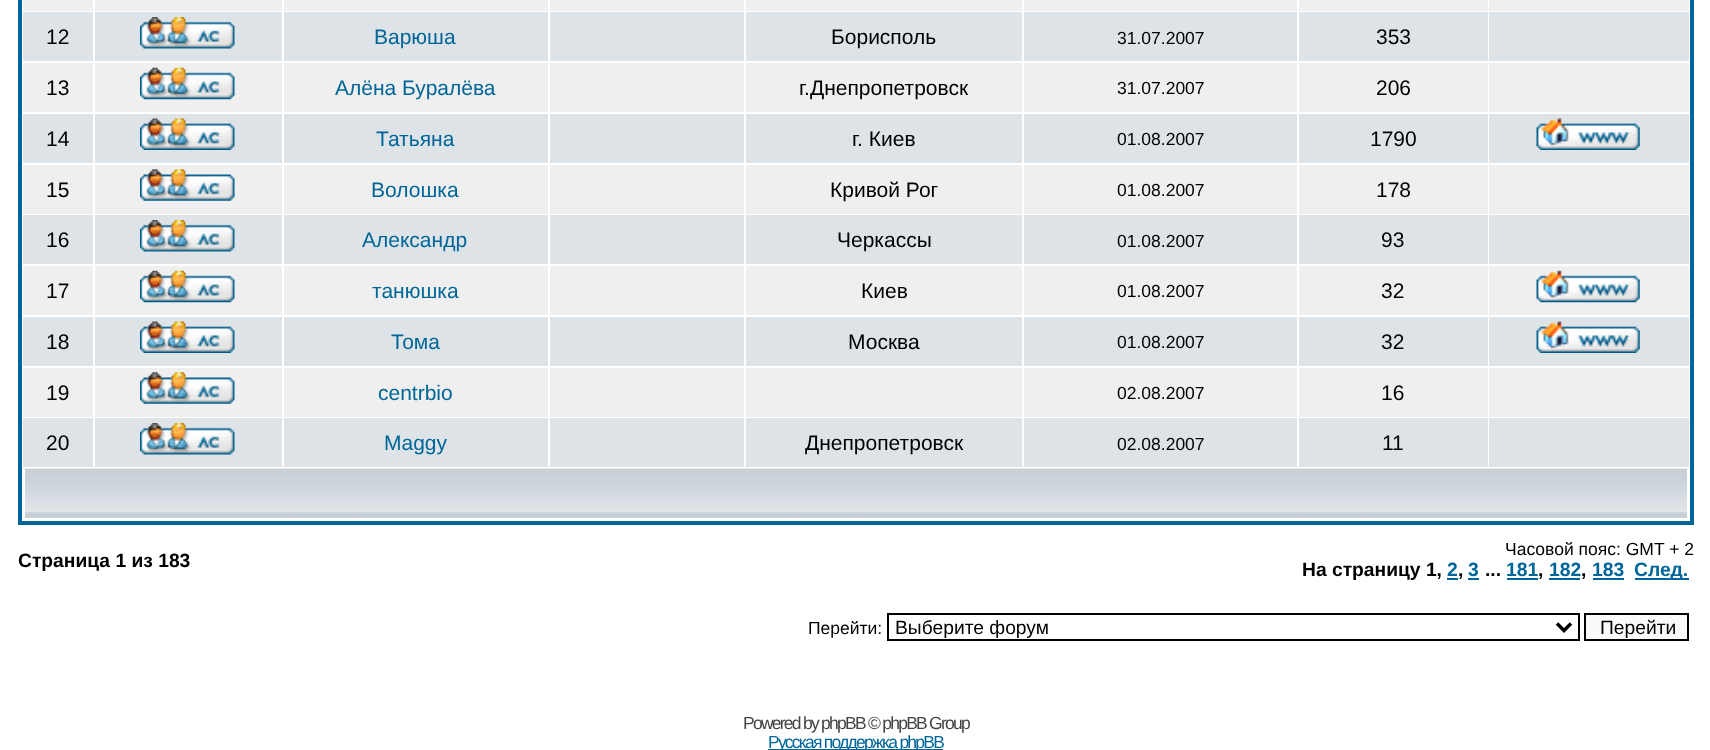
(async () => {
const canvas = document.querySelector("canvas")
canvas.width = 1710
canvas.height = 750
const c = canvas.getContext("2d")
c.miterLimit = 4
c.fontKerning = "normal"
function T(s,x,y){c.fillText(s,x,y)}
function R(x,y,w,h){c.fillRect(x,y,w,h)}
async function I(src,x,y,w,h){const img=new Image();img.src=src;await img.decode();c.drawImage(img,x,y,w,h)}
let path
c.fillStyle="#fff"
R(0,0,1710,750)
c.strokeStyle="#069"
c.lineWidth=4
c.strokeRect(20,-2,1672,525)
c.fillStyle="#efefef"
R(23,0,70,11)
R(95,0,187,11)
R(284,0,264,11)
R(550,0,194,11)
R(746,0,276,11)
R(1024,0,273,11)
R(1299,0,189,11)
R(1489,0,200,11)
c.fillStyle="#dee3e7"
R(23,12,70,49)
c.font="21px Liberation Sans"
c.fillStyle="#000"
T("12",46,44)
c.fillStyle="#dee3e7"
R(95,12,187,49)
await I("1.png",140,17,95,32)
R(284,12,264,49)
c.fillStyle="#069"
T("Варюша",374,44)
c.fillStyle="#dee3e7"
R(550,12,194,49)
R(746,12,276,49)
c.fillStyle="#000"
T("Борисполь",831,44)
c.fillStyle="#dee3e7"
R(1024,12,273,49)
c.font="17.5px Liberation Sans"
c.fillStyle="#000"
T("31.07.2007",1117,44)
c.fillStyle="#dee3e7"
R(1299,12,189,49)
c.font="21px Liberation Sans"
c.fillStyle="#000"
T("353",1376,44)
c.fillStyle="#dee3e7"
R(1489,12,200,49)
c.fillStyle="#efefef"
R(23,63,70,49)
c.fillStyle="#000"
T("13",46,95)
c.fillStyle="#efefef"
R(95,63,187,49)
await I("2.png",140,67,95,33)
R(284,63,264,49)
c.fillStyle="#069"
T("Алёна Буралёва",335,95)
c.fillStyle="#efefef"
R(550,63,194,49)
R(746,63,276,49)
c.fillStyle="#000"
T("г.Днепропетровск",799,95)
c.fillStyle="#efefef"
R(1024,63,273,49)
c.font="17.5px Liberation Sans"
c.fillStyle="#000"
T("31.07.2007",1117,94)
c.fillStyle="#efefef"
R(1299,63,189,49)
c.font="21px Liberation Sans"
c.fillStyle="#000"
T("206",1376,95)
c.fillStyle="#efefef"
R(1489,63,200,49)
c.fillStyle="#dee3e7"
R(23,114,70,49)
c.fillStyle="#000"
T("14",46,146)
c.fillStyle="#dee3e7"
R(95,114,187,49)
await I("3.png",140,118,95,32)
R(284,114,264,49)
c.fillStyle="#069"
T("Татьяна",376,146)
c.fillStyle="#dee3e7"
R(550,114,194,49)
R(746,114,276,49)
c.fillStyle="#000"
T("г. Киев",852,146)
c.fillStyle="#dee3e7"
R(1024,114,273,49)
c.font="17.5px Liberation Sans"
c.fillStyle="#000"
T("01.08.2007",1117,145)
c.fillStyle="#dee3e7"
R(1299,114,189,49)
c.font="21px Liberation Sans"
c.fillStyle="#000"
T("1790",1370,146)
c.fillStyle="#dee3e7"
R(1489,114,200,49)
await I("4.png",1536,118,104,32)
c.fillStyle="#efefef"
R(23,165,70,49)
c.fillStyle="#000"
T("15",46,197)
c.fillStyle="#efefef"
R(95,165,187,49)
await I("5.png",140,169,95,32)
R(284,165,264,49)
c.fillStyle="#069"
T("Волошка",371,197)
c.fillStyle="#efefef"
R(550,165,194,49)
R(746,165,276,49)
c.fillStyle="#000"
T("Кривой Рог",830,197)
c.fillStyle="#efefef"
R(1024,165,273,49)
c.font="17.5px Liberation Sans"
c.fillStyle="#000"
T("01.08.2007",1117,196)
c.fillStyle="#efefef"
R(1299,165,189,49)
c.font="21px Liberation Sans"
c.fillStyle="#000"
T("178",1376,197)
c.fillStyle="#efefef"
R(1489,165,200,49)
c.fillStyle="#dee3e7"
R(23,215,70,49)
c.fillStyle="#000"
T("16",46,247)
c.fillStyle="#dee3e7"
R(95,215,187,49)
await I("1.png",140,220,95,32)
R(284,215,264,49)
c.fillStyle="#069"
T("Александр",362,247)
c.fillStyle="#dee3e7"
R(550,215,194,49)
R(746,215,276,49)
c.fillStyle="#000"
T("Черкассы",837,247)
c.fillStyle="#dee3e7"
R(1024,215,273,49)
c.font="17.5px Liberation Sans"
c.fillStyle="#000"
T("01.08.2007",1117,247)
c.fillStyle="#dee3e7"
R(1299,215,189,49)
c.font="21px Liberation Sans"
c.fillStyle="#000"
T("93",1381,247)
c.fillStyle="#dee3e7"
R(1489,215,200,49)
c.fillStyle="#efefef"
R(23,266,70,49)
c.fillStyle="#000"
T("17",46,298)
c.fillStyle="#efefef"
R(95,266,187,49)
await I("2.png",140,270,95,33)
R(284,266,264,49)
c.fillStyle="#069"
T("танюшка",372,298)
c.fillStyle="#efefef"
R(550,266,194,49)
R(746,266,276,49)
c.fillStyle="#000"
T("Киев",861,298)
c.fillStyle="#efefef"
R(1024,266,273,49)
c.font="17.5px Liberation Sans"
c.fillStyle="#000"
T("01.08.2007",1117,297)
c.fillStyle="#efefef"
R(1299,266,189,49)
c.font="21px Liberation Sans"
c.fillStyle="#000"
T("32",1381,298)
c.fillStyle="#efefef"
R(1489,266,200,49)
await I("6.png",1536,270,104,33)
c.fillStyle="#dee3e7"
R(23,317,70,49)
c.fillStyle="#000"
T("18",46,349)
c.fillStyle="#dee3e7"
R(95,317,187,49)
await I("3.png",140,321,95,32)
R(284,317,264,49)
c.fillStyle="#069"
T("Тома",391,349)
c.fillStyle="#dee3e7"
R(550,317,194,49)
R(746,317,276,49)
c.fillStyle="#000"
T("Москва",848,349)
c.fillStyle="#dee3e7"
R(1024,317,273,49)
c.font="17.5px Liberation Sans"
c.fillStyle="#000"
T("01.08.2007",1117,348)
c.fillStyle="#dee3e7"
R(1299,317,189,49)
c.font="21px Liberation Sans"
c.fillStyle="#000"
T("32",1381,349)
c.fillStyle="#dee3e7"
R(1489,317,200,49)
await I("4.png",1536,321,104,32)
c.fillStyle="#efefef"
R(23,368,70,49)
c.fillStyle="#000"
T("19",46,400)
c.fillStyle="#efefef"
R(95,368,187,49)
await I("5.png",140,372,95,32)
R(284,368,264,49)
c.fillStyle="#069"
T("centrbio",378,400)
c.fillStyle="#efefef"
R(550,368,194,49)
R(746,368,276,49)
R(1024,368,273,49)
c.font="17.5px Liberation Sans"
c.fillStyle="#000"
T("02.08.2007",1117,399)
c.fillStyle="#efefef"
R(1299,368,189,49)
c.font="21px Liberation Sans"
c.fillStyle="#000"
T("16",1381,400)
c.fillStyle="#efefef"
R(1489,368,200,49)
c.fillStyle="#dee3e7"
R(23,418,70,49)
c.fillStyle="#000"
T("20",46,450)
c.fillStyle="#dee3e7"
R(95,418,187,49)
await I("1.png",140,423,95,32)
R(284,418,264,49)
c.fillStyle="#069"
T("Maggy",384,450)
c.fillStyle="#dee3e7"
R(550,418,194,49)
R(746,418,276,49)
c.fillStyle="#000"
T("Днепропетровск",805,450)
c.fillStyle="#dee3e7"
R(1024,418,273,49)
c.font="17.5px Liberation Sans"
c.fillStyle="#000"
T("02.08.2007",1117,450)
c.fillStyle="#dee3e7"
R(1299,418,189,49)
c.font="21px Liberation Sans"
c.fillStyle="#000"
T("11",1382,450)
c.fillStyle="#dee3e7"
R(1489,418,200,49)
await I("7.png",22,468,1667,52)
c.fillStyle="#fff"
R(1687,469,2,51)
R(23,518,1666,2)
R(23,469,2,51)
c.font="bold 19.25px Liberation Sans"
c.fillStyle="#000"
T("Страница 1 из 183",18,567)
c.font="17.5px Liberation Sans"
T("Часовой пояс: GMT + 2",1505,555)
c.font="bold 19.25px Liberation Sans"
T("На страницу 1,",1302,576)
c.fillStyle="#069"
T("2",1447,576)
c.fillStyle="#000"
T(",",1458,576)
c.fillStyle="#069"
R(1447,578,11,2)
R(1468,578,11,2)
T("3",1468,576)
c.fillStyle="#000"
T("...",1485,576)
c.fillStyle="#069"
T("181",1506,576)
c.fillStyle="#000"
T(",",1538,576)
c.fillStyle="#069"
R(1507,578,31,2)
T("182",1549,576)
c.fillStyle="#000"
T(",",1581,576)
c.fillStyle="#069"
R(1549,578,31,2)
R(1593,578,31,2)
T("183",1592,576)
R(1635,578,54,2)
T("След.",1634,576)
c.font="17.5px Liberation Sans"
c.fillStyle="#000"
T("Перейти:",808,634)
c.strokeStyle="#000"
c.lineWidth=2
c.strokeRect(888,614,691,26)
path = new Path2D("M1557 623.5l7 7l7-7")
c.lineWidth=3.5
c.stroke(path)
c.font="19.25px Liberation Sans"
T("Выберите форум",895,634)
c.fillStyle="#fafafa"
c.beginPath()
c.rect(1585,614,103,26)
c.fill()
c.lineWidth=2
c.stroke()
c.fillStyle="#000"
T("Перейти",1600,634)
c.letterSpacing="-1.75px"
c.font="17.5px Liberation Sans"
c.fillStyle="#444"
T("Powered by phpBB © phpBB Group",743,729)
c.fillStyle="#069"
R(768,749,175,1)
T("Русская поддержка phpBB",768,748)
})()
